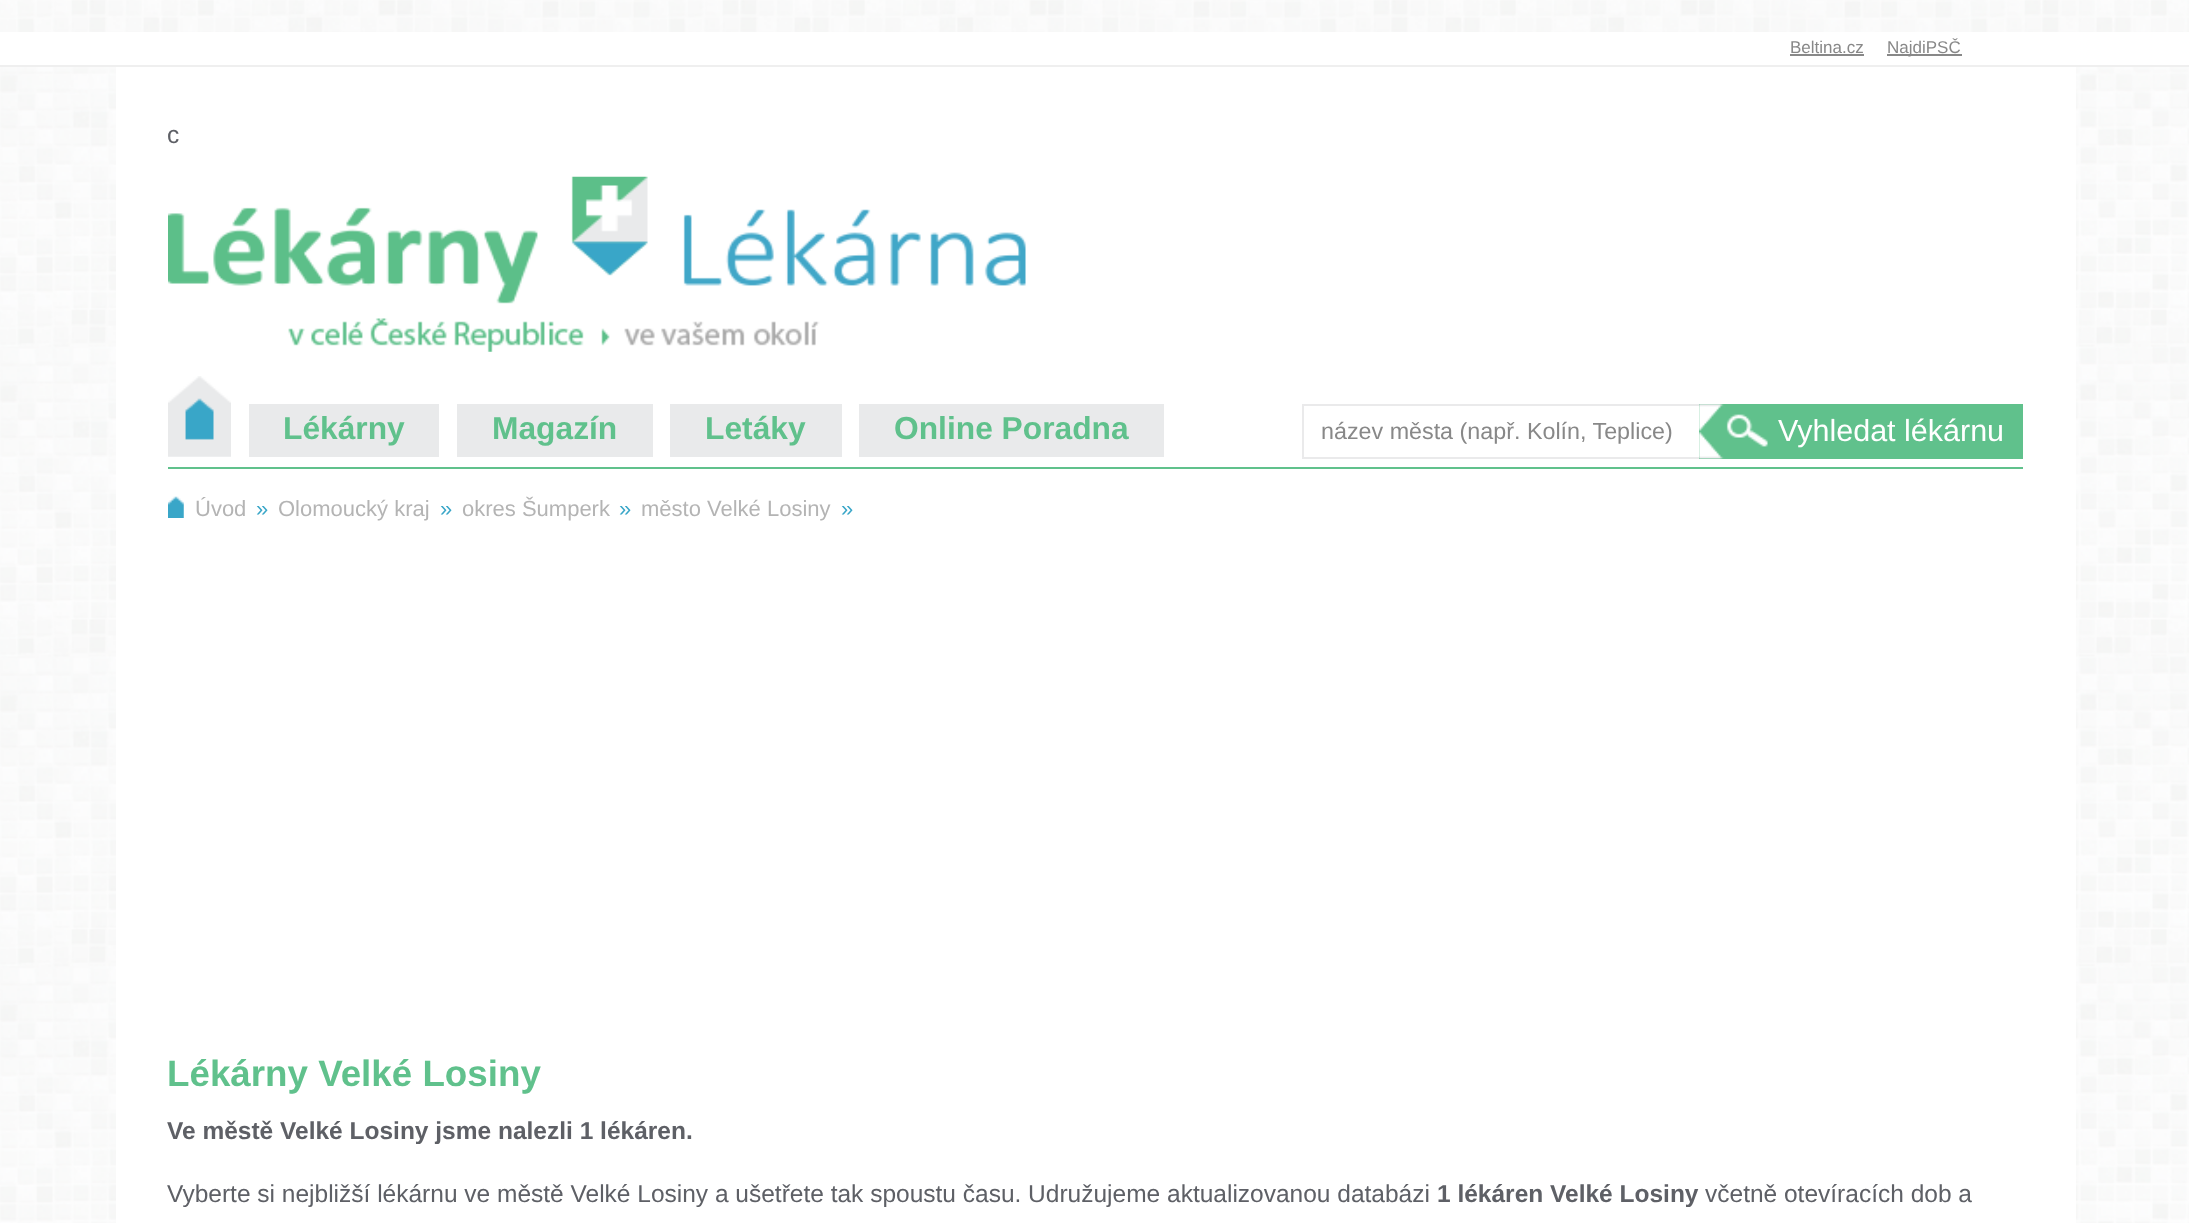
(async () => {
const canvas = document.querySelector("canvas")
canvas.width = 2189
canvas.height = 1223
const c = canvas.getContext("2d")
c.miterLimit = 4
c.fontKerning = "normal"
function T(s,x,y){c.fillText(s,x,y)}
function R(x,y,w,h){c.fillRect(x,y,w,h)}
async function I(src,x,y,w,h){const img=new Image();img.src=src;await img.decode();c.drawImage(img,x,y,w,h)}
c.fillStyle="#fff"
R(0,0,2189,1223)
await I("1.png",0,0,2189,1223)
R(0,32,2189,33)
c.fillStyle="#efefef"
R(0,65,2189,2)
c.font="17px Liberation Sans"
c.fillStyle="#888"
T("Beltina.cz",1790,53)
R(1790,54,74,2)
R(1887,54,75,2)
T("NajdiPSČ",1887,53)
c.fillStyle="#fff"
R(116,67,1960,1156)
c.font="24.5px Liberation Sans"
c.fillStyle="#5e6066"
T("c",167,143)
await I("2.png",168,176,858,176)
c.fillStyle="#60c18c"
R(168,467,1855,2)
await I("3.png",168,376,63,81)
c.fillStyle="#e9eaeb"
R(249,404,190,53)
c.font="bold 31.75px Liberation Sans"
c.fillStyle="#60c18c"
T("Lékárny",283,439)
c.fillStyle="#e9eaeb"
R(457,404,196,53)
c.fillStyle="#60c18c"
T("Magazín",492,439)
c.fillStyle="#e9eaeb"
R(670,404,172,53)
c.fillStyle="#60c18c"
T("Letáky",705,439)
c.fillStyle="#e9eaeb"
R(859,404,305,53)
c.fillStyle="#60c18c"
T("Online Poradna",894,439)
c.strokeStyle="#eaeaeb"
c.lineWidth=2
c.strokeRect(1303,405,413,53)
c.font="23.3px Liberation Sans"
c.fillStyle="#888"
T("název města (např. Kolín, Teplice)",1321,439)
c.fillStyle="#60c18c"
R(1699,404,324,55)
await I("4.png",1699,404,69,55)
c.font="30.5px Liberation Sans"
c.fillStyle="#fff"
T("Vyhledat lékárnu",1778,441)
await I("5.png",168,496,16,22)
c.font="22px Liberation Sans"
c.fillStyle="#b4b4b4"
T("Úvod",195,516)
c.fillStyle="#39a6c8"
T("»",256,516)
c.fillStyle="#b4b4b4"
T("Olomoucký kraj",278,516)
c.fillStyle="#39a6c8"
T("»",440,516)
c.fillStyle="#b4b4b4"
T("okres Šumperk",462,516)
c.fillStyle="#39a6c8"
T("»",619,516)
c.fillStyle="#b4b4b4"
T("město Velké Losiny",641,516)
c.fillStyle="#39a6c8"
T("»",841,516)
c.font="bold 36.75px Liberation Sans"
c.fillStyle="#60c18c"
T("Lékárny Velké Losiny",167,1086)
c.font="bold 24.5px Liberation Sans"
c.fillStyle="#5e6066"
T("Ve městě Velké Losiny jsme nalezli 1 lékáren.",167,1139)
c.font="24.5px Liberation Sans"
T("Vyberte si nejbližší lékárnu ve městě Velké Losiny a ušetřete tak spoustu času. Udružujeme aktualizovanou databázi",167,1202)
c.font="bold 24.5px Liberation Sans"
T("1 lékáren Velké Losiny",1437,1202)
c.font="24.5px Liberation Sans"
T("včetně otevíracích dob a",1705,1202)
})()
